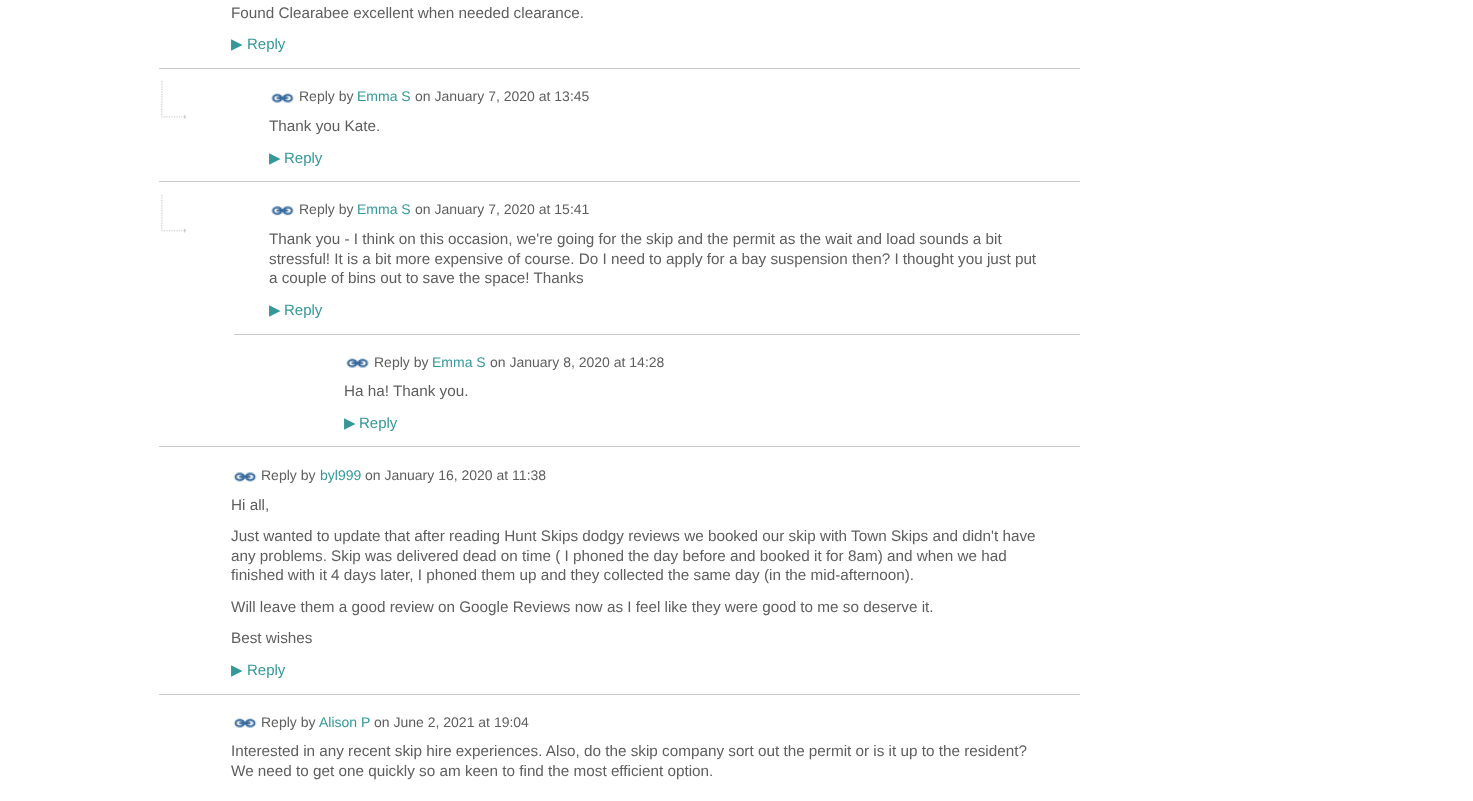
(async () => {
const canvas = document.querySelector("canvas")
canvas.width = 1473
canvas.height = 801
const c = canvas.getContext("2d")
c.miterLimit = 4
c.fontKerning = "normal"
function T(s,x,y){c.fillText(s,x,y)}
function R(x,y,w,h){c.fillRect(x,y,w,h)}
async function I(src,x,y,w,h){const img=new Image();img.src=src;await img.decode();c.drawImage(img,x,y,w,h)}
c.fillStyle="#fff"
R(0,0,1473,801)
c.font="15.27px Liberation Sans"
c.fillStyle="#5e5e5e"
T("Found Clearabee excellent when needed clearance.",231,18)
c.font="15px DejaVu Sans"
c.fillStyle="#349899"
T("▶",231,49)
c.font="15px Liberation Sans"
T("Reply",247,49)
await I("1.png",161,81,26,38)
c.fillStyle="#c9c9c9"
R(159,68,921,1)
await I("2.png",271,93,23,10)
c.font="14px Liberation Sans"
c.fillStyle="#5e5e5e"
T("Reply by",299,101)
c.fillStyle="#349899"
T("Emma S",357,101)
c.fillStyle="#5e5e5e"
T("on January 7, 2020 at 13:45",415,101)
c.font="15.27px Liberation Sans"
T("Thank you Kate.",269,131)
c.font="15px DejaVu Sans"
c.fillStyle="#349899"
T("▶",269,163)
c.font="15px Liberation Sans"
T("Reply",284,163)
await I("3.png",161,195,26,38)
c.fillStyle="#c9c9c9"
R(159,181,921,1)
await I("4.png",271,206,23,10)
c.font="14px Liberation Sans"
c.fillStyle="#5e5e5e"
T("Reply by",299,214)
c.fillStyle="#349899"
T("Emma S",357,214)
c.fillStyle="#5e5e5e"
T("on January 7, 2020 at 15:41",415,214)
c.font="15.27px Liberation Sans"
T("Thank you - I think on this occasion, we're going for the skip and the permit as the wait and load sounds a bit",269,244)
T("stressful! It is a bit more expensive of course. Do I need to apply for a bay suspension then? I thought you just put",269,264)
T("a couple of bins out to save the space! Thanks",269,283)
c.font="15px DejaVu Sans"
c.fillStyle="#349899"
T("▶",269,315)
c.font="15px Liberation Sans"
T("Reply",284,315)
c.fillStyle="#c9c9c9"
R(234,334,846,1)
await I("2.png",346,358,23,10)
c.font="14px Liberation Sans"
c.fillStyle="#5e5e5e"
T("Reply by",374,367)
c.fillStyle="#349899"
T("Emma S",432,367)
c.fillStyle="#5e5e5e"
T("on January 8, 2020 at 14:28",490,367)
c.font="15.27px Liberation Sans"
T("Ha ha! Thank you.",344,396)
c.font="15px DejaVu Sans"
c.fillStyle="#349899"
T("▶",344,428)
c.font="15px Liberation Sans"
T("Reply",359,428)
c.fillStyle="#c9c9c9"
R(159,446,921,1)
await I("5.png",233,472,24,10)
c.font="14px Liberation Sans"
c.fillStyle="#5e5e5e"
T("Reply by",261,480)
c.fillStyle="#349899"
T("byl999",320,480)
c.fillStyle="#5e5e5e"
T("on January 16, 2020 at 11:38",365,480)
c.font="15.27px Liberation Sans"
T("Hi all,",231,510)
T("Just wanted to update that after reading Hunt Skips dodgy reviews we booked our skip with Town Skips and didn't have",231,541)
T("any problems. Skip was delivered dead on time ( I phoned the day before and booked it for 8am) and when we had",231,561)
T("finished with it 4 days later, I phoned them up and they collected the same day (in the mid-afternoon).",231,580)
T("Will leave them a good review on Google Reviews now as I feel like they were good to me so deserve it.",231,612)
T("Best wishes",231,643)
c.font="15px DejaVu Sans"
c.fillStyle="#349899"
T("▶",231,675)
c.font="15px Liberation Sans"
T("Reply",247,675)
c.fillStyle="#c9c9c9"
R(159,694,921,1)
await I("6.png",233,718,24,10)
c.font="14px Liberation Sans"
c.fillStyle="#5e5e5e"
T("Reply by",261,727)
c.fillStyle="#349899"
T("Alison P",319,727)
c.fillStyle="#5e5e5e"
T("on June 2, 2021 at 19:04",374,727)
c.font="15.27px Liberation Sans"
T("Interested in any recent skip hire experiences. Also, do the skip company sort out the permit or is it up to the resident?",231,756)
T("We need to get one quickly so am keen to find the most efficient option.",231,776)
})()
